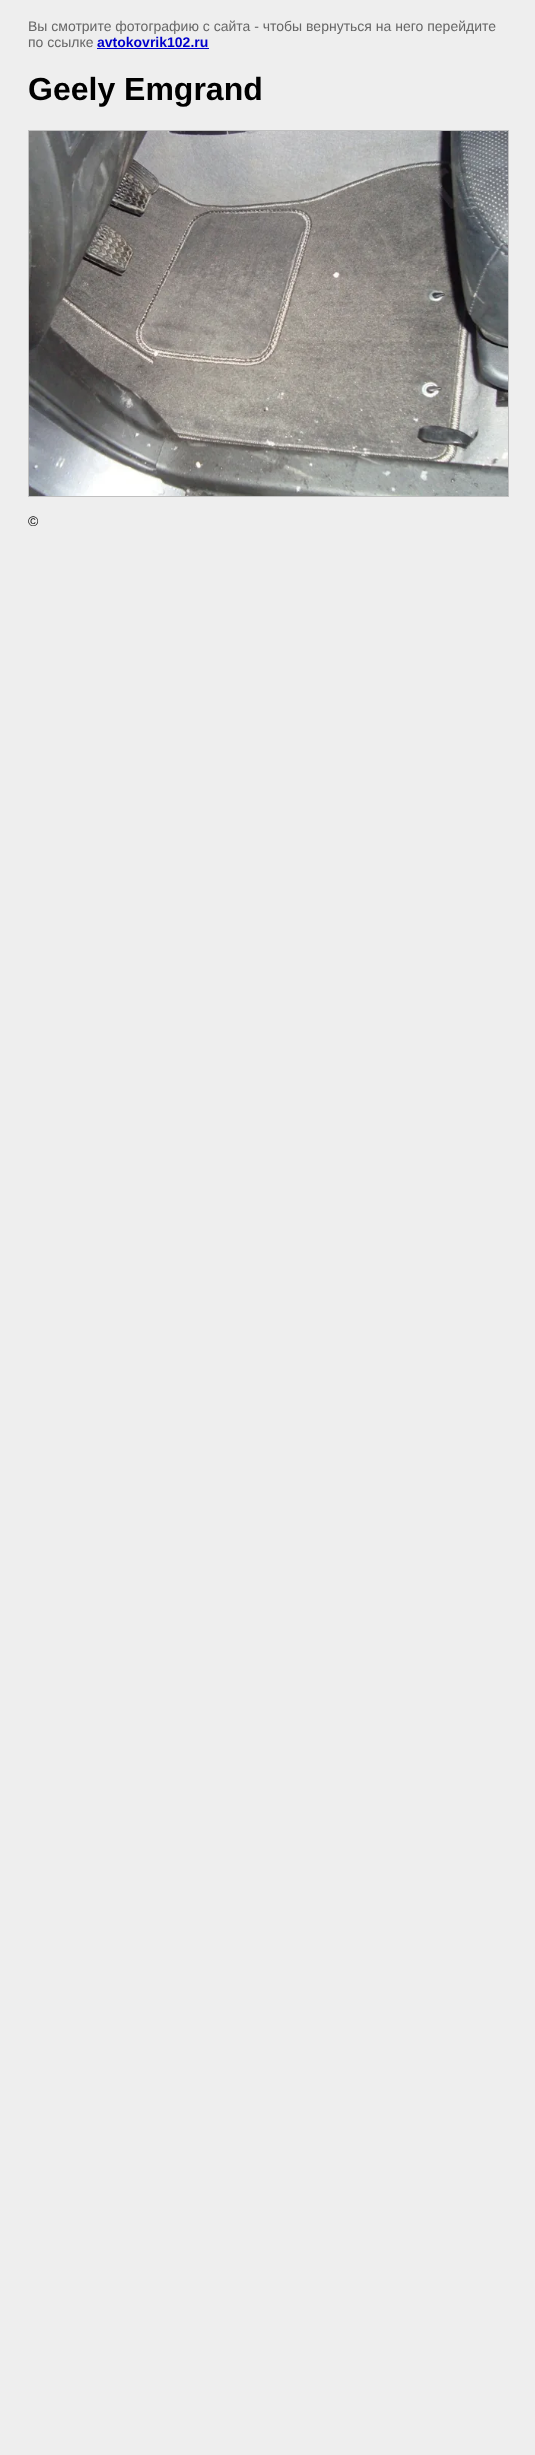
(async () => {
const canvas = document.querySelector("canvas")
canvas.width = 535
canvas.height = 2455
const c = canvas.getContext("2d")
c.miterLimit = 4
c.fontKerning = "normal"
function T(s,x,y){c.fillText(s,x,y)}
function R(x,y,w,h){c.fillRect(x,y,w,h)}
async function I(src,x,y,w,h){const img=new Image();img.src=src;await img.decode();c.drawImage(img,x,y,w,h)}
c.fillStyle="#eee"
R(0,0,535,2455)
c.font="14px Liberation Sans"
c.fillStyle="#666"
T("Вы смотрите фотографию с сайта - чтобы вернуться на него перейдите",28,31)
T("по ссылке",28,47)
c.font="bold 14px Liberation Sans"
c.fillStyle="#00c"
T("avtokovrik102.ru",97,47)
R(97,48,112,1)
c.font="bold 32px Liberation Sans"
c.fillStyle="#000"
T("Geely Emgrand",28,100)
c.strokeStyle="#c0c0c0"
c.strokeRect(28.5,130.5,480,366)
await I("1.png",29,131,479,365)
c.font="14px Liberation Sans"
T("©",28,526)
})()
